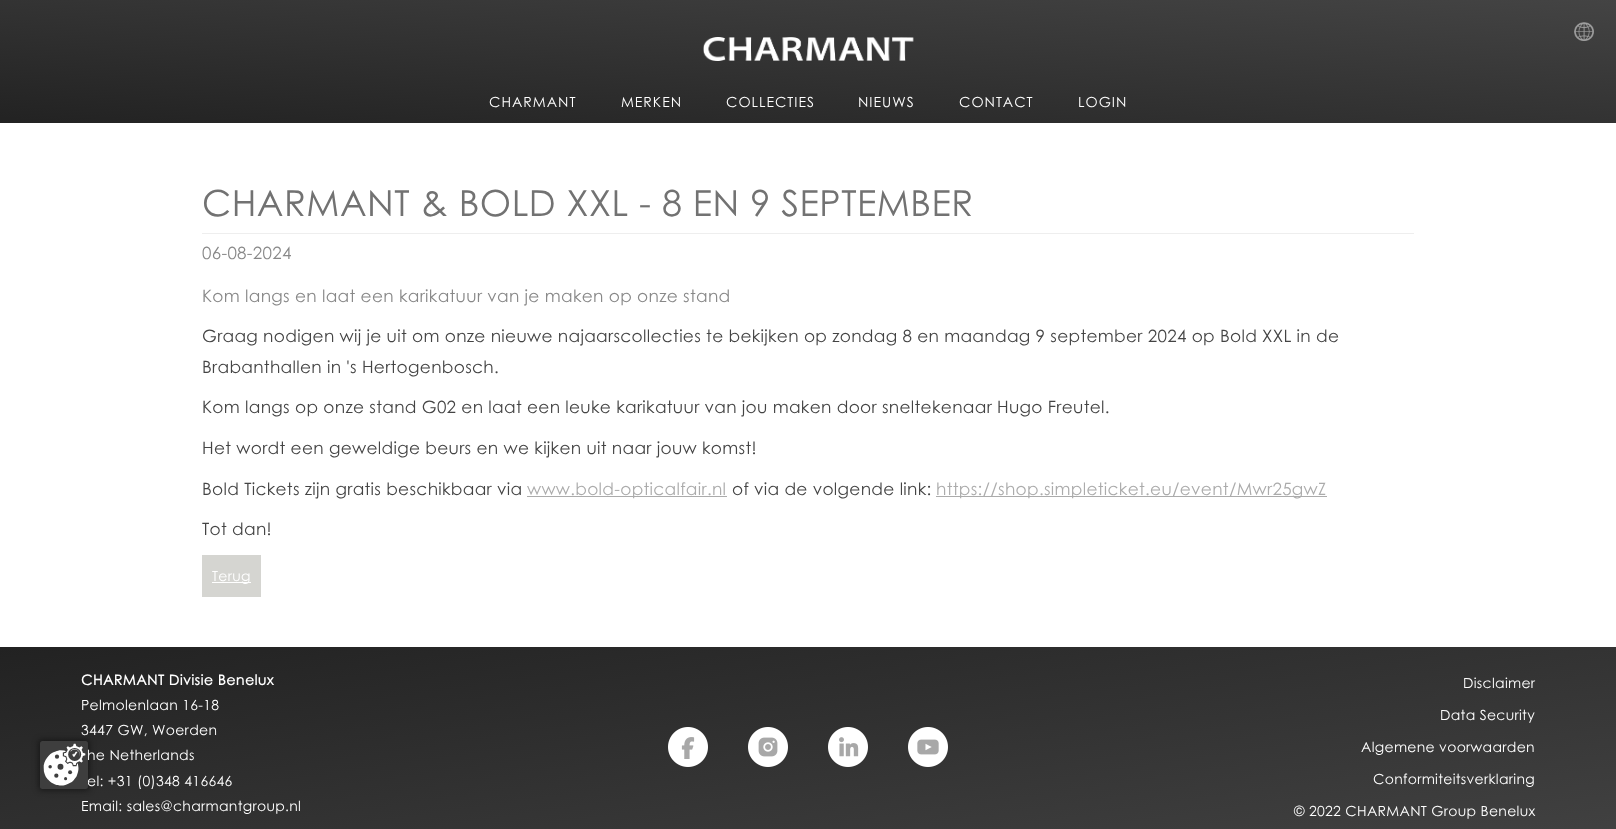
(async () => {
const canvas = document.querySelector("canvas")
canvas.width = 1616
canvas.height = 829
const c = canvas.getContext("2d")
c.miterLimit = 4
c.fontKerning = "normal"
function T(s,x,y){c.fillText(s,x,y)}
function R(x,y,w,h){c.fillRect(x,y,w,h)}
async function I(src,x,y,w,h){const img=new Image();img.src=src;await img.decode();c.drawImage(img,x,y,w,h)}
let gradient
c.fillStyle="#fff"
R(0,0,1616,829)
gradient = c.createLinearGradient(799,184,817,-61)
gradient.addColorStop(0,"#222")
gradient.addColorStop(1,"#444")
c.fillStyle = gradient
R(0,0,1616,123)
await I("1.png",1574,22,20,19)
await I("2.png",703,37,211,24)
c.letterSpacing="1px"
c.font="14px Century Gothic"
c.fillStyle="#fff"
T("CHARMANT",489,107)
T("MERKEN",621,107)
T("COLLECTIES",726,107)
T("NIEUWS",858,107)
T("CONTACT",959,107)
T("LOGIN",1078,107)
c.letterSpacing="0.5px"
c.font="36px Century Gothic"
c.fillStyle="#727272"
T("CHARMANT & BOLD XXL - 8 EN 9 SEPTEMBER",202,216)
c.fillStyle="#eee"
R(202,233,1212,1)
c.letterSpacing="0.3px"
c.font="17px Century Gothic"
c.fillStyle="#888"
T("06-08-2024",202,259)
T("Kom langs en laat een karikatuur van je maken op onze stand",202,302)
c.fillStyle="#444"
T("Graag nodigen wij je uit om onze nieuwe najaarscollecties te bekijken op zondag 8 en maandag 9 september 2024 op Bold XXL in de",202,342)
T("Brabanthallen in 's Hertogenbosch.",202,373)
T("Kom langs op onze stand G02 en laat een leuke karikatuur van jou maken door sneltekenaar Hugo Freutel.",202,413)
T("Het wordt een geweldige beurs en we kijken uit naar jouw komst!",202,454)
T("Bold Tickets zijn gratis beschikbaar via",202,495)
c.fillStyle="#ababab"
R(527,496,200,1)
T("www.bold-opticalfair.nl",527,495)
c.fillStyle="#444"
T("of via de volgende link:",732,495)
c.fillStyle="#ababab"
R(936,496,391,1)
T("https://shop.simpleticket.eu/event/Mwr25gwZ",936,495)
c.fillStyle="#444"
T("Tot dan!",202,535)
c.fillStyle="#d5d5d1"
R(202,555,59,42)
c.fillStyle="#fff"
R(212,582,39,1)
c.font="14px Century Gothic"
T("Terug",212,581)
gradient = c.createLinearGradient(776,537,840,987)
gradient.addColorStop(0,"#222")
gradient.addColorStop(1,"#444")
c.fillStyle = gradient
R(0,647,1616,182)
c.fillStyle="#00000080"
c.filter="blur(3px)"
c.beginPath()
c.rect(39,740,50,50)
c.fill()
c.filter="none"
c.fillStyle="#fff"
T("el: +31 (0)348 416646",87,786)
await I("3.png",40,741,48,48)
c.letterSpacing="0.5px"
c.font="bold 14px Century Gothic"
T("CHARMANT Divisie Benelux",81,685)
c.letterSpacing="0.3px"
c.font="14px Century Gothic"
T("Pelmolenlaan 16-18",81,710)
T("3447 GW, Woerden",81,735)
T("he Netherlands",87,760)
T("Email: sales@charmantgroup.nl",81,811)
await I("4.png",668,727,40,40)
await I("5.png",748,727,40,40)
await I("6.png",828,727,40,40)
await I("7.png",908,727,40,40)
T("Disclaimer",1463,688)
T("Data Security",1440,720)
T("Algemene voorwaarden",1361,752)
T("Conformiteitsverklaring",1373,784)
T("© 2022 CHARMANT Group Benelux",1294,816)
})()
